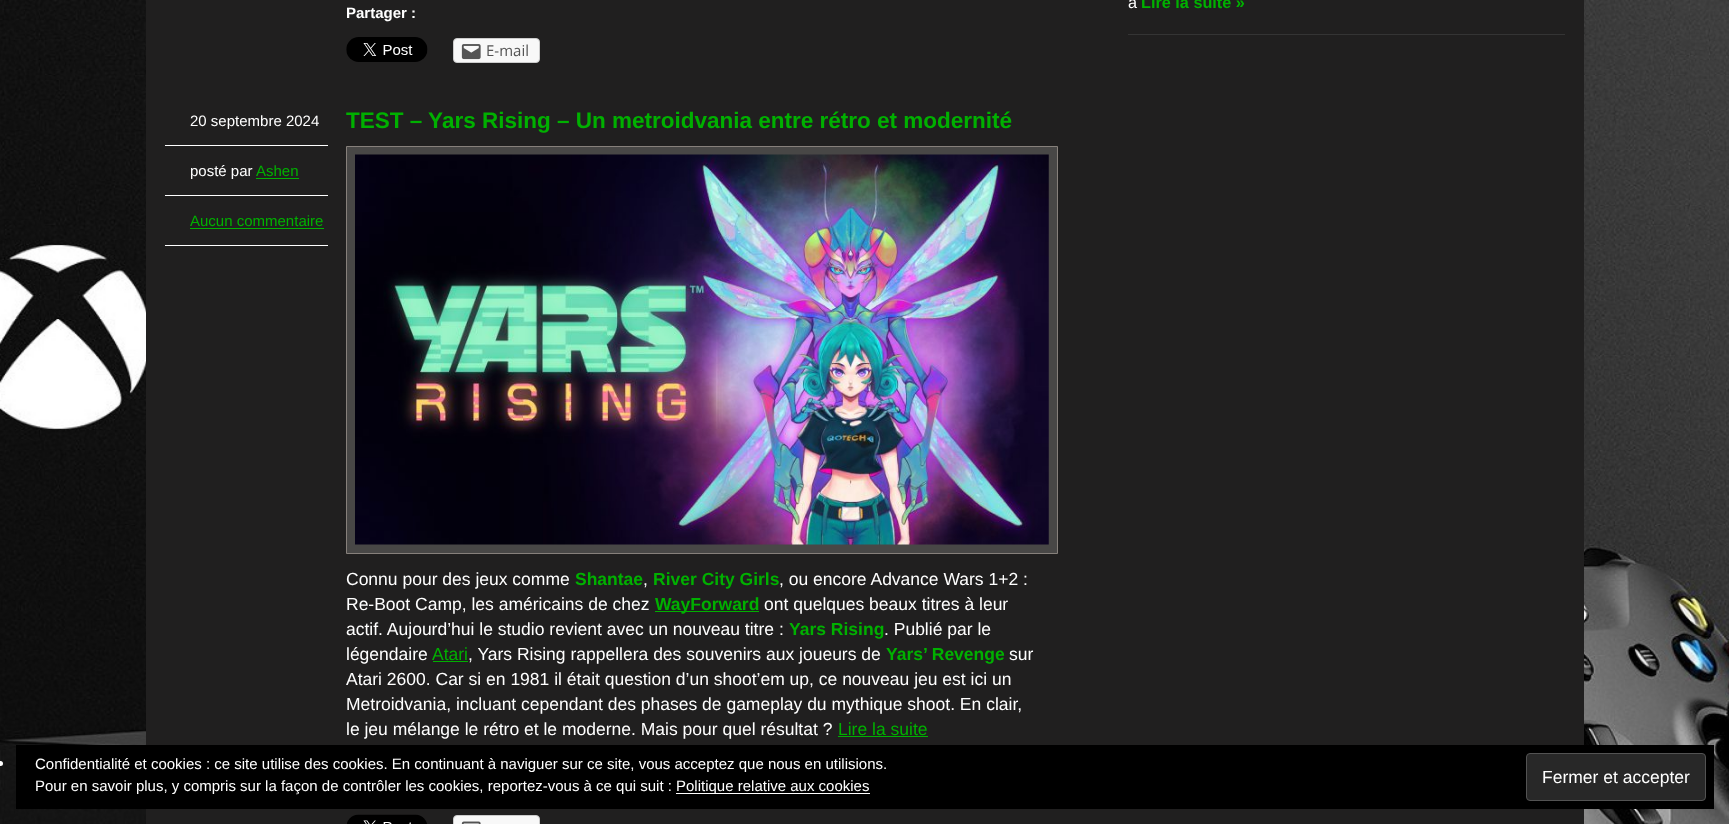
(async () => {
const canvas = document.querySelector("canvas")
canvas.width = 1729
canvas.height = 824
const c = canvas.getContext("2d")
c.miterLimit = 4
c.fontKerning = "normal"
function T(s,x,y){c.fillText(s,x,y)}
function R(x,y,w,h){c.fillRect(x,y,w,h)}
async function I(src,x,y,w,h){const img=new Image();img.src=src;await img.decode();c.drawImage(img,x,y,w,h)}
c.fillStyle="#fff"
R(0,0,1729,824)
await I("1.png",0,0,1729,824)
c.fillStyle="#201f1f"
R(146,0,1438,824)
c.fillStyle="#343434"
R(1128,34,437,1)
c.font="16.25px Liberation Sans"
c.fillStyle="#fff"
T("à",1128,8)
c.font="bold 16.25px Liberation Sans"
c.fillStyle="#00b000"
T("Lire la suite »",1141,8)
c.font="bold 15px Liberation Sans"
c.fillStyle="#fff"
T("Partager :",346,18)
await I("2.png",346,37,82,25)
c.fillStyle="#f8f8f8"
c.beginPath()
c.roundRect(453.5,38.5,86,24,3.5)
c.fill()
c.strokeStyle="#ccc"
c.stroke()
await I("3.png",461,44,20,16)
c.font="15px Open Sans"
c.fillStyle="#545454"
T("E-mail",486,56)
c.fillStyle="#fff"
R(165,145,163,1)
c.font="15px Liberation Sans"
T("20 septembre 2024",190,126)
R(165,195,163,1)
T("posté par",190,176)
c.fillStyle="#00b000"
T("Ashen",256,176)
R(256,178,43,1)
c.fillStyle="#fff"
R(165,245,163,1)
c.fillStyle="#00b000"
T("Aucun commentaire",190,226)
R(190,228,134,1)
c.font="bold 22.5px Liberation Sans"
T("TEST – Yars Rising – Un metroidvania entre rétro et modernité",346,128)
c.fillStyle="#484746"
c.beginPath()
c.rect(346.5,146.5,711,407)
c.fill()
c.strokeStyle="#86807b"
c.stroke()
await I("4.png",355,154,694,391)
c.font="17.5px Liberation Sans"
c.fillStyle="#fff"
T("Connu pour des jeux comme",346,585)
c.font="bold 17.5px Liberation Sans"
c.fillStyle="#00b000"
T("Shantae",575,585)
c.font="17.5px Liberation Sans"
c.fillStyle="#fff"
T(",",643,585)
c.font="bold 17.5px Liberation Sans"
c.fillStyle="#00b000"
T("River City Girls",653,585)
c.font="17.5px Liberation Sans"
c.fillStyle="#fff"
T(", ou encore Advance Wars 1+2 :",779,585)
T("Re-Boot Camp, les américains de chez",346,610)
c.fillStyle="#00b000"
R(655,611,104,1)
c.font="bold 17.5px Liberation Sans"
T("WayForward",655,610)
c.font="17.5px Liberation Sans"
c.fillStyle="#fff"
T("ont quelques beaux titres à leur",764,610)
T("actif. Aujourd’hui le studio revient avec un nouveau titre :",346,635)
c.font="bold 17.5px Liberation Sans"
c.fillStyle="#00b000"
T("Yars Rising",789,635)
c.font="17.5px Liberation Sans"
c.fillStyle="#fff"
T(". Publié par le",884,635)
T("légendaire",346,660)
c.fillStyle="#00b000"
T("Atari",432,660)
R(433,661,35,1)
c.fillStyle="#fff"
T(", Yars Rising rappellera des souvenirs aux joueurs de",468,660)
c.font="bold 17.5px Liberation Sans"
c.fillStyle="#00b000"
T("Yars’ Revenge",886,660)
c.font="17.5px Liberation Sans"
c.fillStyle="#fff"
T("sur",1009,660)
T("Atari 2600. Car si en 1981 il était question d’un shoot’em up, ce nouveau jeu est ici un",346,685)
T("Metroidvania, incluant cependant des phases de gameplay du mythique shoot. En clair,",346,710)
T("le jeu mélange le rétro et le moderne. Mais pour quel résultat ?",346,735)
c.fillStyle="#00b000"
T("Lire la suite",838,735)
R(838,736,90,1)
await I("5.png",347,814,80,10)
c.fillStyle="#f8f8f8"
c.beginPath()
c.roundRect(453.5,815.5,86,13,3.5)
c.fill()
c.strokeStyle="#ccc"
c.stroke()
await I("6.png",461,821,20,3)
c.fillStyle="#fff"
c.beginPath()
c.arc(.5,763.5,2.5,0,7)
c.fill()
c.fillStyle="#000"
R(16,745,1698,64)
c.font="15px Liberation Sans"
c.fillStyle="#fff"
T("Confidentialité et cookies : ce site utilise des cookies. En continuant à naviguer sur ce site, vous acceptez que nous en utilisions.",35,769)
T("Pour en savoir plus, y compris sur la façon de contrôler les cookies, reportez-vous à ce qui suit :",35,791)
R(676,793,194,1)
T("Politique relative aux cookies",676,791)
c.fillStyle="#282828"
c.beginPath()
c.roundRect(1526.5,753.5,179,47,3.5)
c.fill()
c.strokeStyle="#535353"
c.stroke()
c.font="17.5px Liberation Sans"
c.fillStyle="#fff"
T("Fermer et accepter",1542,783)
})()
